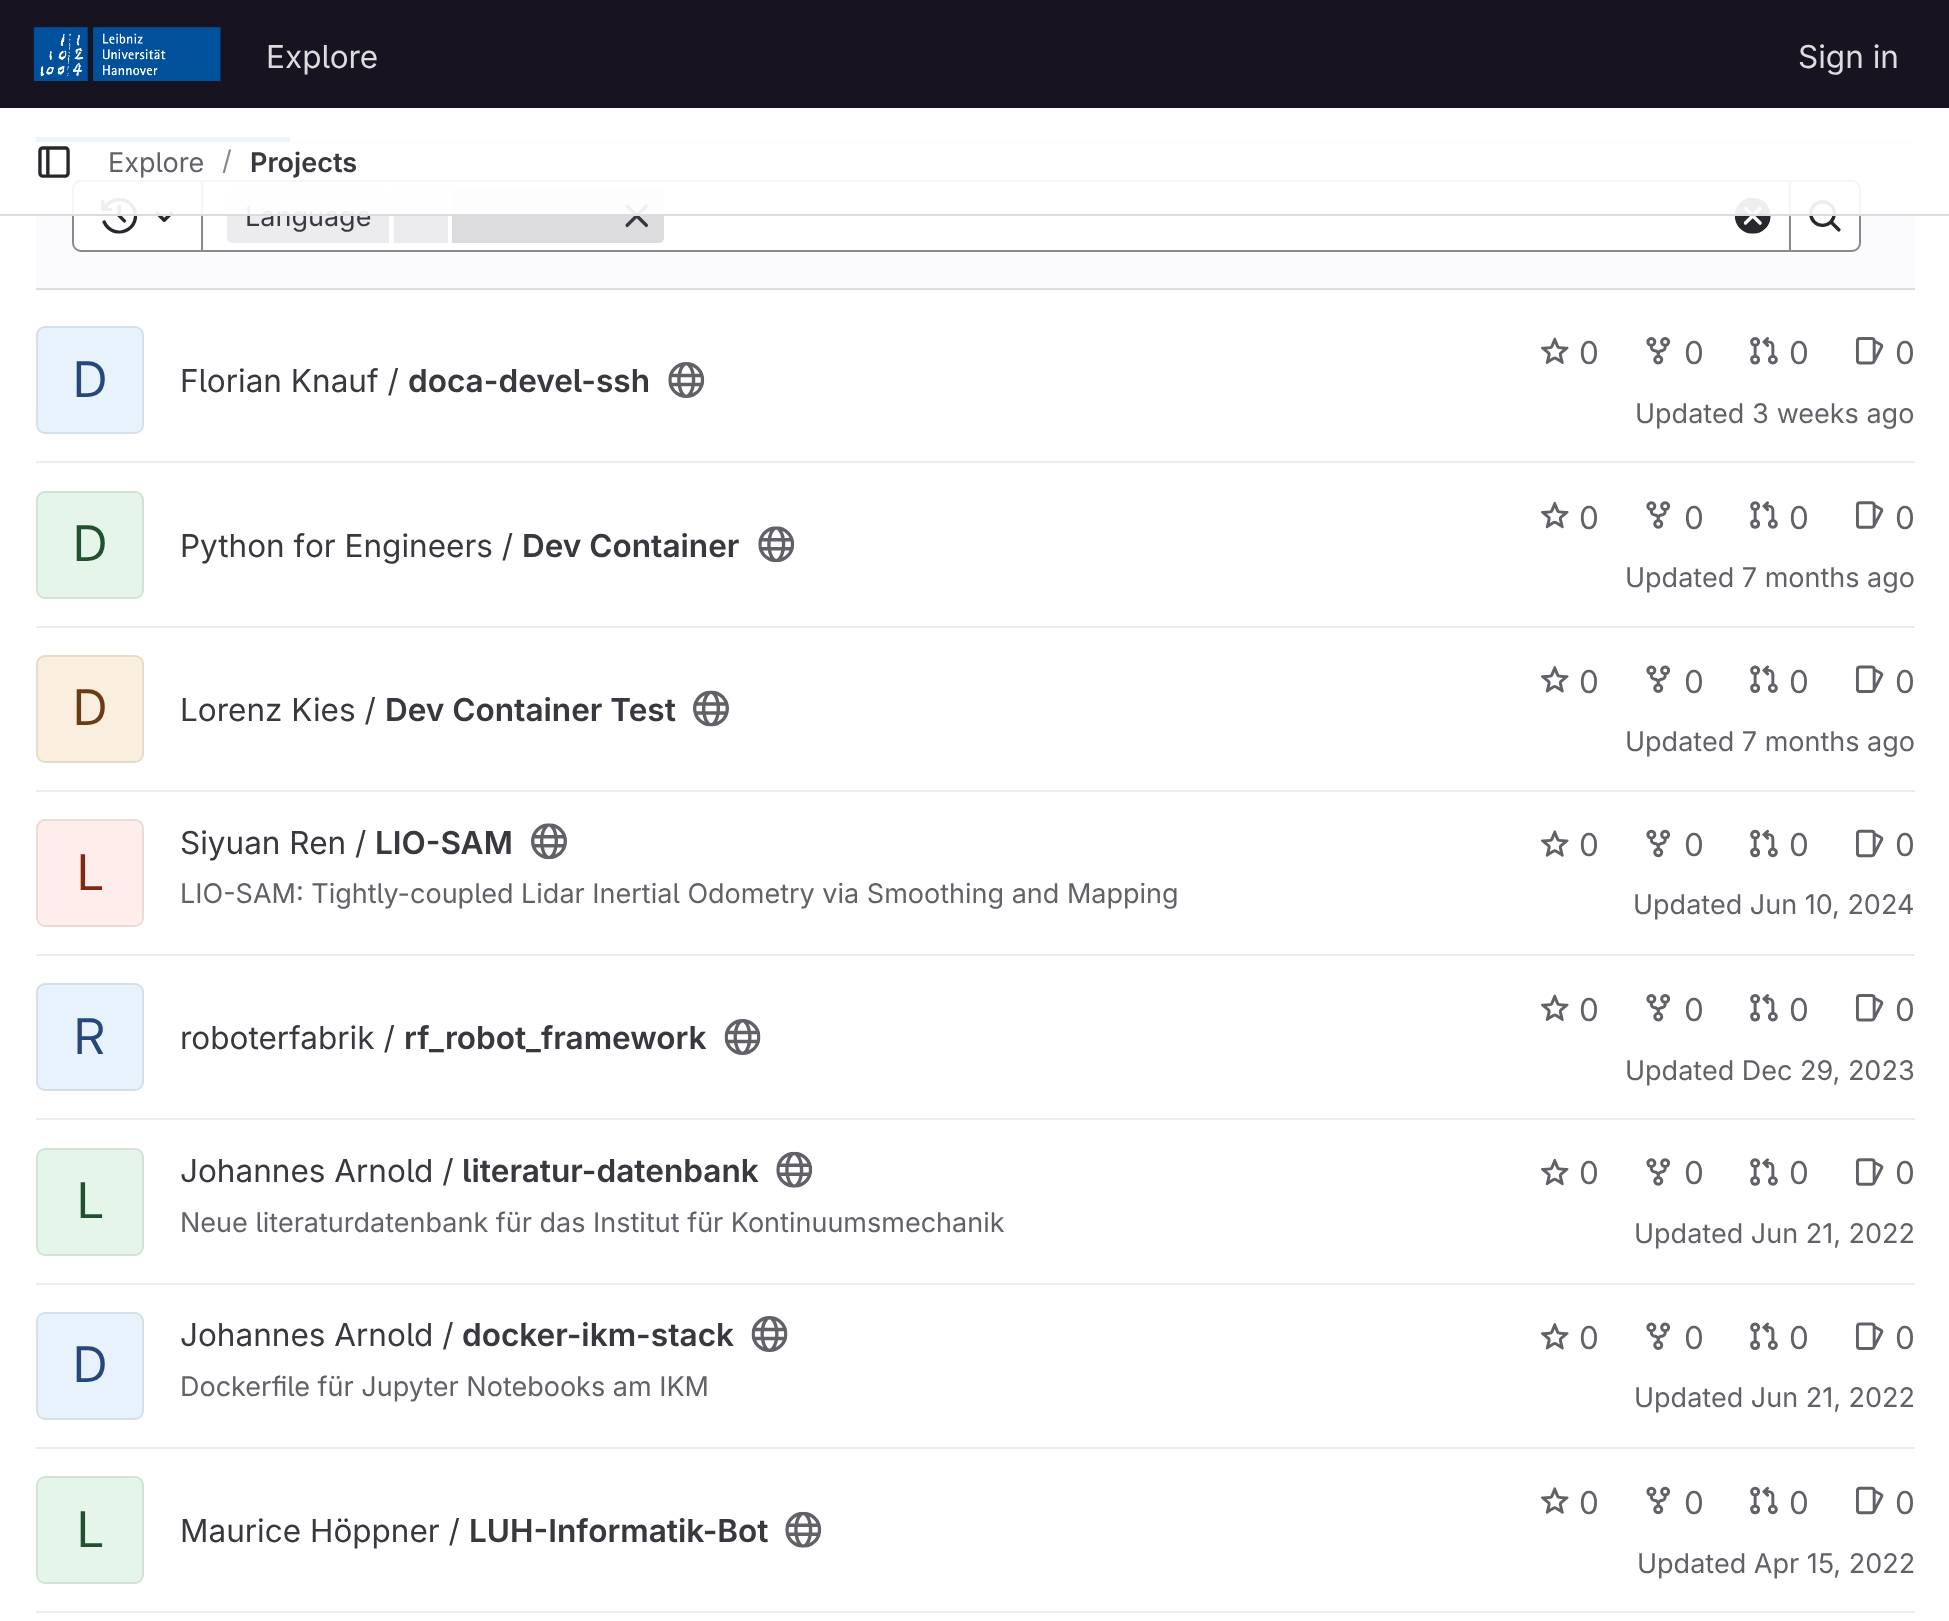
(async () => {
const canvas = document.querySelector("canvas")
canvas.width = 1949
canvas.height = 1621
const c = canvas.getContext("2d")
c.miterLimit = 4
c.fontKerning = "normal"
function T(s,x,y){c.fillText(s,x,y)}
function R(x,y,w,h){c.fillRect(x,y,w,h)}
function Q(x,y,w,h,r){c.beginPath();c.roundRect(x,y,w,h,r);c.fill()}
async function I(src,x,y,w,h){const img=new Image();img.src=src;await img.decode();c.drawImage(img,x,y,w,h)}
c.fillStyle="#fff"
R(0,0,1949,1621)
c.fillStyle="#171321"
R(0,0,1949,108)
await I("1.png",33,27,188,54)
c.font="31.5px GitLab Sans"
c.fillStyle="#dcdcde"
T("Explore",266,68)
T("Sign in",1798,68)
c.fillStyle="#1f75cb"
R(36,137,254,5)
c.fillStyle="#fbfafd"
R(36,144,1879,144)
c.fillStyle="#dcdcde"
R(36,142,1879,2)
c.fillStyle="#fff"
R(203,182,1586,68)
c.strokeStyle="#89888d"
c.lineWidth=2
c.strokeRect(201,181,1589,70)
c.beginPath()
c.roundRect(73,181,129,70,[8,0,0,8])
c.fill()
c.stroke()
await I("3.png",101,197,37,37)
await I("4.png",155,211,19,11)
c.fillStyle="#ececef"
c.beginPath()
c.roundRect(227,189,162,54,[5,0,0,5])
c.fill()
c.font="27px GitLab Sans"
c.fillStyle="#3a383f"
T("Language",245,226)
c.fillStyle="#ececef"
R(394,189,54,54)
c.fillStyle="#dcdcde"
c.beginPath()
c.roundRect(452,189,212,54,[0,5,5,0])
c.fill()
await I("5.png",625,204,24,24)
await I("6.png",1734,197,37,37)
c.fillStyle="#fff"
c.beginPath()
c.roundRect(1790,181,70,70,[0,8,8,0])
c.fill()
c.stroke()
await I("7.png",1809,200,32,32)
c.fillStyle="#ffffffeb"
R(36,137,1879,77)
c.fillStyle="#dcdcde"
R(0,214,1949,2)
await I("2.png",38,146,32,32)
c.fillStyle="#626168"
T("Explore",108,172)
c.fillStyle="#89888d"
T("/",222,170)
c.font="600 27px GitLab Sans"
c.fillStyle="#3a383f"
T("Projects",250,172)
c.fillStyle="#dcdcde"
R(36,288,1879,2)
c.fillStyle="#ececef"
R(36,461,1879,2)
c.fillStyle="#e7f2fc"
Q(36,326,108,108,9)
c.beginPath()
c.roundRect(37,327,106,106,8)
c.strokeStyle="#05050614"
c.stroke()
c.font="49px 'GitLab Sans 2'"
c.fillStyle="#284779"
T("D",73,397)
c.font="31.5px GitLab Sans"
c.fillStyle="#3a383f"
T("Florian Knauf /",180,392)
c.font="600 31.5px GitLab Sans"
T("doca-devel-ssh",408,392)
await I("8.png",668,362,37,36)
await I("9.png",1541,337,28,27)
c.font="31.5px GitLab Sans"
c.fillStyle="#626168"
T("0",1579,364)
await I("10.png",1646,337,25,28)
T("0",1684,364)
await I("11.png",1750,337,28,28)
T("0",1789,364)
await I("12.png",1855,337,29,28)
T("0",1895,364)
c.font="27px GitLab Sans"
T("Updated 3 weeks ago",1635,423)
c.fillStyle="#ececef"
R(36,626,1879,2)
c.fillStyle="#e5f5ea"
Q(36,491,108,108,9)
c.beginPath()
c.roundRect(37,492,106,106,8)
c.stroke()
c.font="49px 'GitLab Sans 2'"
c.fillStyle="#225131"
T("D",73,561)
c.font="31.5px GitLab Sans"
c.fillStyle="#3a383f"
T("Python for Engineers /",180,557)
c.font="600 31.5px GitLab Sans"
T("Dev Container",522,557)
await I("13.png",758,526,37,37)
await I("14.png",1541,501,28,28)
c.font="31.5px GitLab Sans"
c.fillStyle="#626168"
T("0",1579,529)
await I("15.png",1646,501,25,28)
T("0",1684,529)
await I("16.png",1750,501,28,28)
T("0",1789,529)
await I("17.png",1855,501,29,28)
T("0",1895,529)
c.font="27px GitLab Sans"
T("Updated 7 months ago",1625,587)
c.fillStyle="#ececef"
R(36,790,1879,2)
c.fillStyle="#faefde"
Q(36,655,108,108,9)
c.beginPath()
c.roundRect(37,656,106,106,8)
c.stroke()
c.font="49px 'GitLab Sans 2'"
c.fillStyle="#693c14"
T("D",73,725)
c.font="31.5px GitLab Sans"
c.fillStyle="#3a383f"
T("Lorenz Kies /",180,721)
c.font="600 31.5px GitLab Sans"
T("Dev Container Test",385,721)
await I("18.png",693,690,36,37)
await I("19.png",1541,666,28,27)
c.font="31.5px GitLab Sans"
c.fillStyle="#626168"
T("0",1579,693)
await I("20.png",1646,665,25,28)
T("0",1684,693)
await I("21.png",1750,665,28,28)
T("0",1789,693)
await I("22.png",1855,665,29,28)
T("0",1895,693)
c.font="27px GitLab Sans"
T("Updated 7 months ago",1625,751)
c.fillStyle="#ececef"
R(36,954,1879,2)
c.fillStyle="#feedeb"
Q(36,819,108,108,9)
c.beginPath()
c.roundRect(37,820,106,106,8)
c.stroke()
c.font="49px 'GitLab Sans 2'"
c.fillStyle="#812713"
T("L",77,890)
c.font="31.5px GitLab Sans"
c.fillStyle="#3a383f"
T("Siyuan Ren /",180,854)
c.font="600 31.5px GitLab Sans"
T("LIO-SAM",375,854)
await I("23.png",531,823,36,37)
c.font="27px GitLab Sans"
c.fillStyle="#626168"
T("LIO-SAM: Tightly-coupled Lidar Inertial Odometry via Smoothing and Mapping",180,903)
await I("24.png",1541,830,28,27)
c.font="31.5px GitLab Sans"
T("0",1579,856)
await I("25.png",1646,829,25,29)
T("0",1684,856)
await I("26.png",1750,829,28,29)
T("0",1789,856)
await I("27.png",1855,829,29,29)
T("0",1895,856)
c.font="27px GitLab Sans"
T("Updated Jun 10, 2024",1633,914)
c.fillStyle="#ececef"
R(36,1118,1879,2)
c.fillStyle="#e7f2fc"
Q(36,983,108,108,9)
c.beginPath()
c.roundRect(37,984,106,106,8)
c.stroke()
c.font="49px 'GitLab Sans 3'"
c.fillStyle="#284779"
T("R",74,1054)
c.font="31.5px GitLab Sans"
c.fillStyle="#3a383f"
T("roboterfabrik /",180,1049)
c.font="600 31.5px GitLab Sans"
T("rf_robot_framework",404,1049)
await I("28.png",724,1019,37,36)
await I("9.png",1541,994,28,27)
c.font="31.5px GitLab Sans"
c.fillStyle="#626168"
T("0",1579,1021)
await I("10.png",1646,994,25,28)
T("0",1684,1021)
await I("11.png",1750,994,28,28)
T("0",1789,1021)
await I("12.png",1855,994,29,28)
T("0",1895,1021)
c.font="27px GitLab Sans"
T("Updated Dec 29, 2023",1625,1080)
c.fillStyle="#ececef"
R(36,1283,1879,2)
c.fillStyle="#e5f5ea"
Q(36,1148,108,108,9)
c.beginPath()
c.roundRect(37,1149,106,106,8)
c.stroke()
c.font="49px 'GitLab Sans 2'"
c.fillStyle="#225131"
T("L",77,1218)
c.font="31.5px GitLab Sans"
c.fillStyle="#3a383f"
T("Johannes Arnold /",180,1182)
c.font="600 31.5px GitLab Sans"
T("literatur-datenbank",462,1182)
await I("29.png",776,1151,37,37)
c.font="27px GitLab Sans"
c.fillStyle="#626168"
T("Neue literaturdatenbank für das Institut für Kontinuumsmechanik",180,1232)
await I("14.png",1541,1158,28,28)
c.font="31.5px GitLab Sans"
T("0",1579,1184)
await I("15.png",1646,1158,25,28)
T("0",1684,1184)
await I("16.png",1750,1158,28,28)
T("0",1789,1184)
await I("17.png",1855,1158,29,28)
T("0",1895,1184)
c.font="27px GitLab Sans"
T("Updated Jun 21, 2022",1634,1243)
c.fillStyle="#ececef"
R(36,1447,1879,2)
c.fillStyle="#e7f2fc"
Q(36,1312,108,108,9)
c.beginPath()
c.roundRect(37,1313,106,106,8)
c.stroke()
c.font="49px 'GitLab Sans 2'"
c.fillStyle="#284779"
T("D",73,1382)
c.font="31.5px GitLab Sans"
c.fillStyle="#3a383f"
T("Johannes Arnold /",180,1346)
c.font="600 31.5px GitLab Sans"
T("docker-ikm-stack",462,1346)
await I("30.png",751,1316,37,36)
c.font="27px GitLab Sans"
c.fillStyle="#626168"
T("Dockerfile für Jupyter Notebooks am IKM",180,1396)
await I("19.png",1541,1323,28,27)
c.font="31.5px GitLab Sans"
T("0",1579,1349)
await I("20.png",1646,1322,25,28)
T("0",1684,1349)
await I("21.png",1750,1322,28,28)
T("0",1789,1349)
await I("22.png",1855,1322,29,28)
T("0",1895,1349)
c.font="27px GitLab Sans"
T("Updated Jun 21, 2022",1634,1407)
c.fillStyle="#ececef"
R(36,1611,1879,2)
c.fillStyle="#e5f5ea"
Q(36,1476,108,108,9)
c.beginPath()
c.roundRect(37,1477,106,106,8)
c.stroke()
c.font="49px 'GitLab Sans 2'"
c.fillStyle="#225131"
T("L",77,1547)
c.font="31.5px GitLab Sans"
c.fillStyle="#3a383f"
T("Maurice Höppner /",180,1542)
c.font="600 31.5px GitLab Sans"
T("LUH-Informatik-Bot",469,1542)
await I("29.png",785,1511,37,37)
await I("24.png",1541,1487,28,27)
c.font="31.5px GitLab Sans"
c.fillStyle="#626168"
T("0",1579,1514)
await I("25.png",1646,1486,25,29)
T("0",1684,1514)
await I("26.png",1750,1486,28,29)
T("0",1789,1514)
await I("27.png",1855,1486,29,29)
T("0",1895,1514)
c.font="27px GitLab Sans"
T("Updated Apr 15, 2022",1637,1573)
})()
